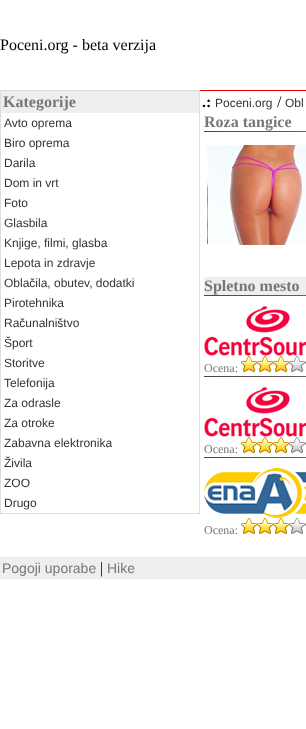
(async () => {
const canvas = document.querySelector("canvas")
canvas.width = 306
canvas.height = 729
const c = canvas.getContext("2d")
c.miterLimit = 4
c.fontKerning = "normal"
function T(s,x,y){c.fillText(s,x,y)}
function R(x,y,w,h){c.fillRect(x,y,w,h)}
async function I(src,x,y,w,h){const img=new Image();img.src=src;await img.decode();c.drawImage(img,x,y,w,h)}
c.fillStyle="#fff"
R(0,0,306,729)
c.font="16px Liberation Serif"
c.fillStyle="#000"
T("Poceni.org - beta verzija",0,50)
c.strokeStyle="#ddd"
c.strokeRect(.5,90.5,199,423)
c.fillStyle="#eee"
R(1,91,198,22)
c.font="bold 16px Liberation Serif"
c.fillStyle="#777"
T("Kategorije",3,107)
c.font="12px Liberation Sans"
c.fillStyle="#333"
T("Avto oprema",4,127)
T("Biro oprema",4,147)
T("Darila",4,167)
T("Dom in vrt",4,187)
T("Foto",4,207)
T("Glasbila",4,227)
T("Knjige, filmi, glasba",4,247)
T("Lepota in zdravje",4,267)
T("Oblačila, obutev, dodatki",4,287)
T("Pirotehnika",4,307)
T("Računalništvo",4,327)
T("Šport",4,347)
T("Storitve",4,367)
T("Telefonija",4,387)
T("Za odrasle",4,407)
T("Za otroke",4,427)
T("Zabavna elektronika",4,447)
T("Živila",4,467)
T("ZOO",4,487)
T("Drugo",4,507)
c.fillStyle="#ec0000"
R(200,90,106,1)
c.font="bold 16px Liberation Serif"
c.fillStyle="#000"
T(".:",202,107)
c.font="12px Liberation Sans"
c.fillStyle="#333"
T("Poceni.org",215,107)
c.font="16px Liberation Serif"
c.fillStyle="#000"
T("/",277,107)
c.font="12px Liberation Sans"
c.fillStyle="#333"
T("Obl",285,107)
c.font="bold 16px Liberation Serif"
c.fillStyle="#777"
T("Roza tangice",204,127)
await I("1.png",204,131,102,1)
await I("2.png",207,145,99,100)
c.fillStyle="#eee"
R(204,277,102,18)
c.fillStyle="#777"
T("Spletno mesto",204,291)
await I("1.png",204,295,102,1)
await I("3.png",204,306,102,50)
await I("4.png",241,356,16,16)
await I("4.png",257,356,16,16)
await I("4.png",273,356,16,16)
await I("5.png",289,356,16,16)
await I("6.png",305,361,1,3)
c.font="12px Liberation Serif"
T("Ocena:",204,372)
await I("1.png",204,376,102,1)
await I("3.png",204,387,102,50)
await I("4.png",241,437,16,16)
await I("4.png",257,437,16,16)
await I("4.png",273,437,16,16)
await I("5.png",289,437,16,16)
await I("6.png",305,442,1,3)
T("Ocena:",204,453)
await I("1.png",204,457,102,1)
await I("7.png",204,468,102,50)
await I("4.png",241,518,16,16)
await I("4.png",257,518,16,16)
await I("4.png",273,518,16,16)
await I("5.png",289,518,16,16)
await I("6.png",305,523,1,3)
T("Ocena:",204,534)
c.fillStyle="#eee"
R(0,557,306,22)
c.font="14px Liberation Sans"
c.fillStyle="#777"
T("Pogoji uporabe",2,573)
c.font="16px Liberation Serif"
c.fillStyle="#000"
T("|",100,573)
c.font="14px Liberation Sans"
c.fillStyle="#777"
T("Hike",107,573)
})()
